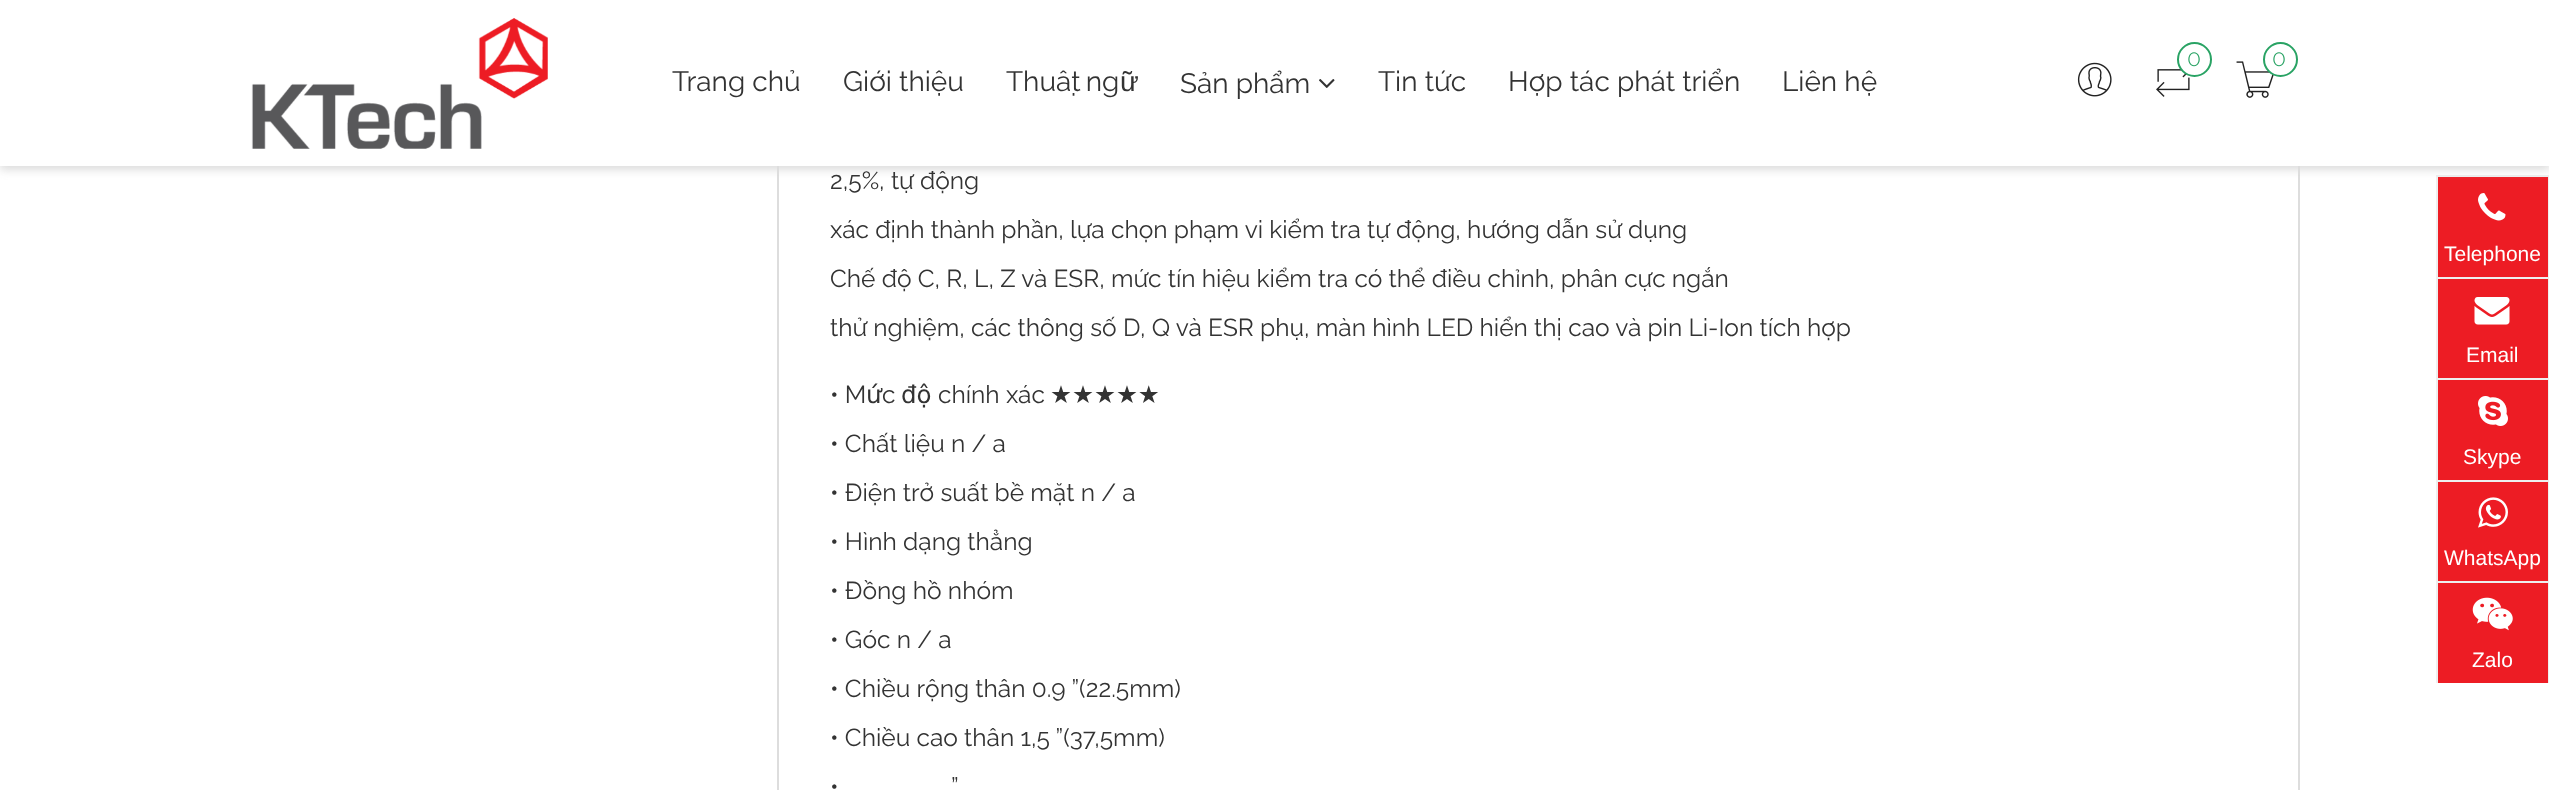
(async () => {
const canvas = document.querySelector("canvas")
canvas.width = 2549
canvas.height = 790
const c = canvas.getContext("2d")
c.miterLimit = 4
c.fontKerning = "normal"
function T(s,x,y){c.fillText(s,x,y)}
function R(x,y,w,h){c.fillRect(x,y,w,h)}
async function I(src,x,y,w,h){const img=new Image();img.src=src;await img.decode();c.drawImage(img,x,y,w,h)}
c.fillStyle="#fff"
R(0,0,2549,790)
c.strokeStyle="#ddd"
c.lineWidth=2
c.strokeRect(778,-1,1521,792)
c.fillStyle="#ed1c24"
R(2438,177,110,100)
c.fillStyle="#eee"
R(2436,175,113,2)
R(2548,175,1,102)
R(2436,175,2,102)
c.fillStyle="#ddd"
c.filter="blur(4.5px)"
c.beginPath()
c.rect(0,4,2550,166)
c.fill()
c.filter="none"
c.fillStyle="#fff"
R(0,0,2549,166)
await I("1.png",251,18,297,131)
await I("2.png",2156,69,34,28)
c.beginPath()
c.arc(2194.5,59.5,16.5,0,7)
c.fill()
c.strokeStyle="#29a364"
c.stroke()
c.font="300 23px Raleway"
c.fillStyle="#29a364"
T("0",2187,66)
await I("3.png",2236,61,38,37)
c.fillStyle="#fff"
c.beginPath()
c.arc(2280.5,59.5,16.5,0,7)
c.fill()
c.stroke()
c.fillStyle="#29a364"
T("0",2272,66)
await I("4.png",2077,62,35,35)
c.font="28px Raleway"
c.fillStyle="#333"
T("Trang chủ",672,91)
T("Giới thiệu",843,91)
c.wordSpacing="-2px"
T("Thuật ng",1006,91)
c.wordSpacing="0px"
c.font="28px Liberation Sans"
T("ữ",1120,91)
c.font="28px Raleway"
T("Sản phẩm",1180,93)
await I("5.png",1319,79,16,9)
T("Tin tức",1378,91)
T("Hợp tác phát triển",1508,91)
T("Liên hệ",1782,91)
c.font="24.5px Raleway"
T("2,5%, tự động",830,189)
T("xác định thành phần, lựa chọn phạm vi kiểm tra tự động, hướng dẫn sử dụng",830,238)
T("Chế độ C, R, L, Z và ESR, mức tín hiệu kiểm tra có thể điều chỉnh, phân cực ngắn",830,287)
T("thử nghiệm, các thông số D, Q và ESR phụ, màn hình LED hiển thị cao và pin Li-Ion tích hợp",830,336)
T("• M",830,403)
c.font="24.5px DejaVu Sans"
T("ứ",866,403)
c.font="24.5px Raleway"
T("c",882,403)
c.font="24.5px DejaVu Sans"
T("độ",901,403)
c.font="24.5px Raleway"
T("chính xác",938,403)
c.font="24.5px DejaVu Sans"
T("★★★★★",1050,403)
c.font="24.5px Raleway"
T("• Chất liệu n / a",830,452)
T("• Điện trở suất bề mặt n / a",830,501)
T("• Hình dạng thẳng",830,550)
T("• Đồng hồ nhóm",830,599)
T("• Góc n / a",830,648)
T("• Chiều rộng thân 0.9 ”(22.5mm)",830,697)
T("• Chiều cao thân 1,5 ”(37,5mm)",830,746)
T("”",951,795)
T("•",830,795)
await I("6.png",2478,193,28,28)
c.font="21px Liberation Sans"
c.fillStyle="#fff"
T("Telephone",2444,261)
c.fillStyle="#ed1c24"
R(2438,279,110,99)
c.fillStyle="#eee"
R(2436,277,113,2)
R(2548,277,1,101)
R(2436,277,2,101)
await I("7.png",2474,297,36,28)
c.fillStyle="#fff"
T("Email",2466,362)
c.fillStyle="#ed1c24"
R(2438,380,110,100)
c.fillStyle="#eee"
R(2436,378,113,2)
R(2548,378,1,102)
R(2436,378,2,102)
await I("8.png",2478,396,30,30)
c.fillStyle="#fff"
T("Skype",2463,464)
c.fillStyle="#ed1c24"
R(2438,482,110,99)
c.fillStyle="#eee"
R(2436,480,113,2)
R(2548,480,1,101)
R(2436,480,2,101)
await I("9.png",2478,497,30,31)
c.fillStyle="#fff"
T("WhatsApp",2444,565)
c.fillStyle="#ed1c24"
R(2438,583,110,100)
c.fillStyle="#eee"
R(2436,581,113,2)
R(2548,581,1,102)
R(2436,581,2,102)
await I("10.png",2472,597,41,34)
c.fillStyle="#fff"
T("Zalo",2472,667)
})()
